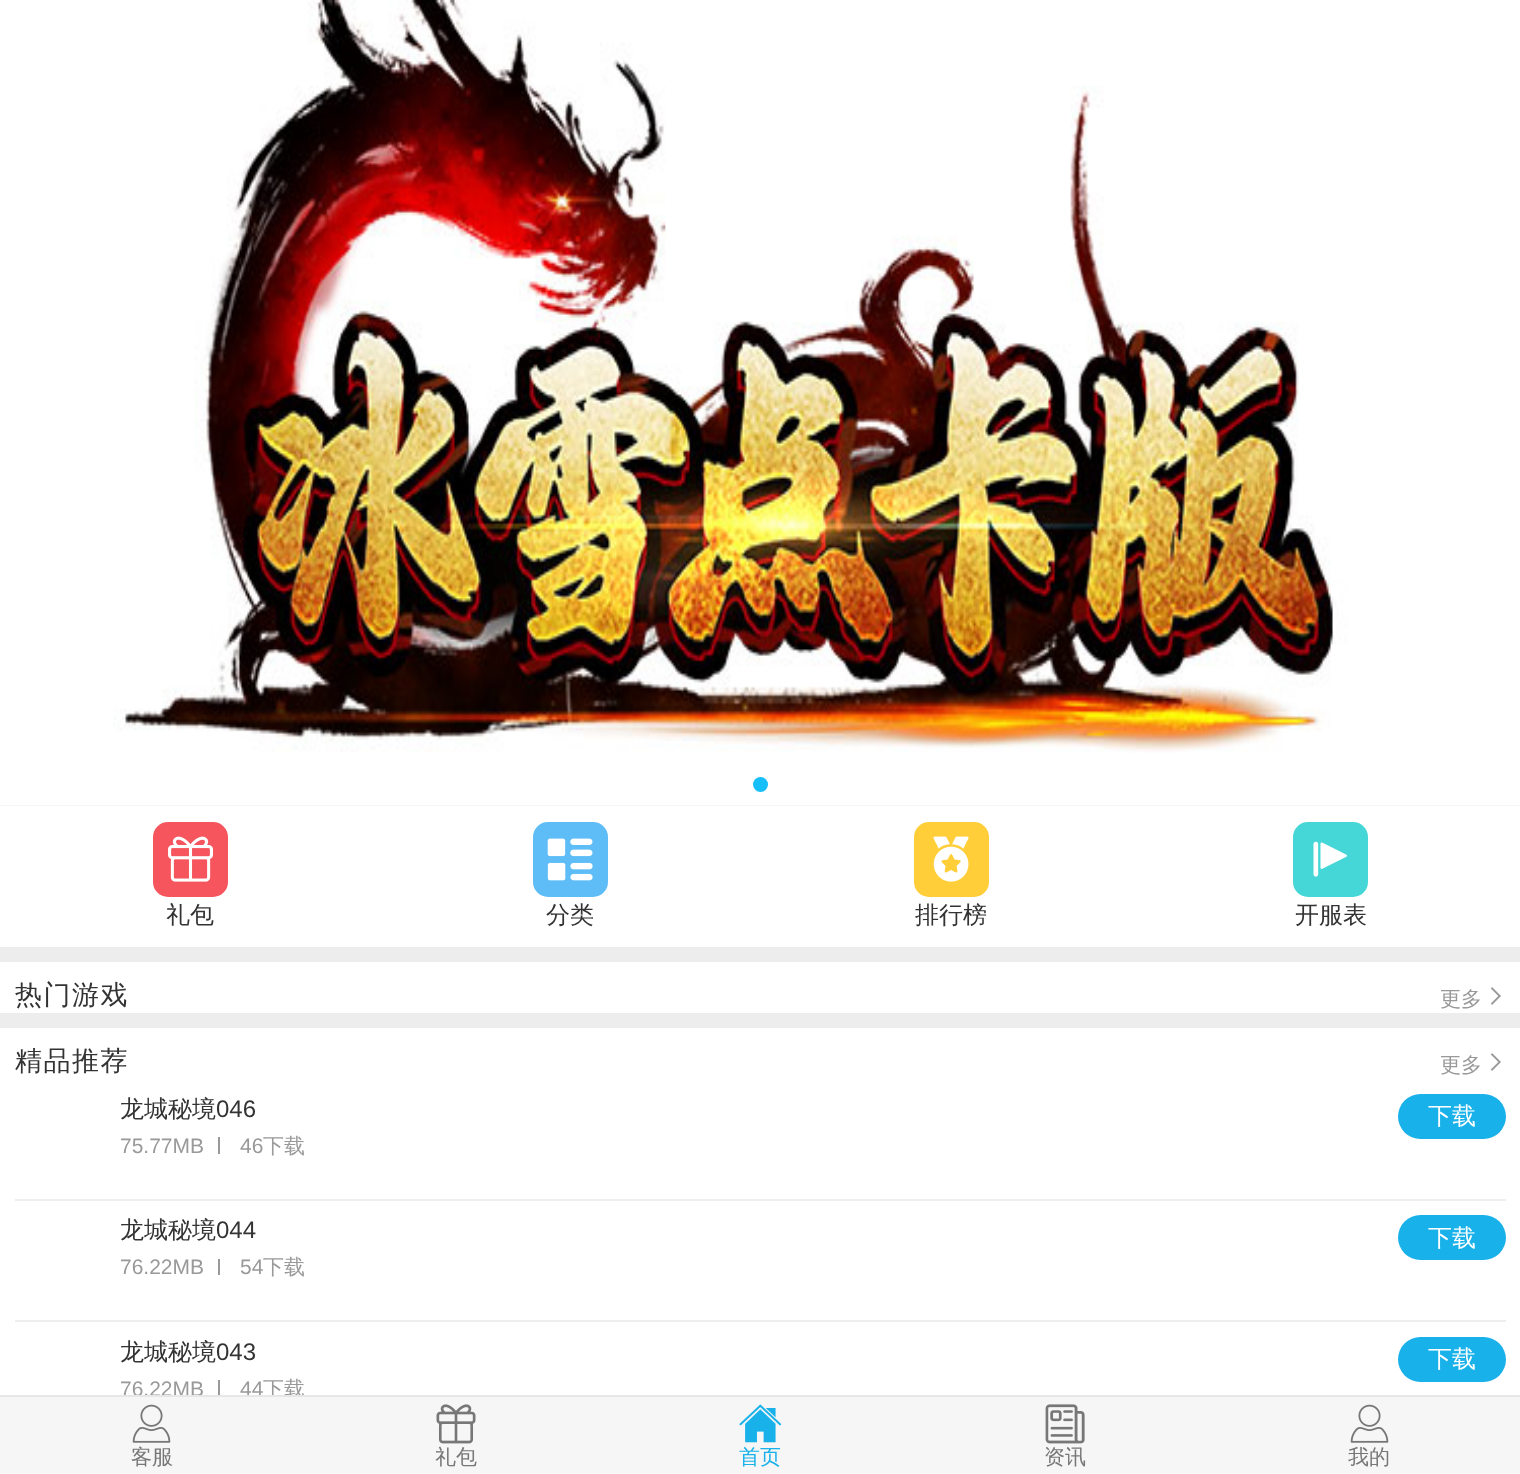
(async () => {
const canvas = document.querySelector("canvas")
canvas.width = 1520
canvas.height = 1474
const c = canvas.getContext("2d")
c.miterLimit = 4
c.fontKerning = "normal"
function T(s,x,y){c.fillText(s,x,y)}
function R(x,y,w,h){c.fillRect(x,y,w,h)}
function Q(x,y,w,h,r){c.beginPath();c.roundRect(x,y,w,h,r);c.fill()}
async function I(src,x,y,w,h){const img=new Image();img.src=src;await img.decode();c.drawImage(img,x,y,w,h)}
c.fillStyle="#ededed"
R(0,0,1520,1474)
await I("1.png",0,0,1520,806)
c.fillStyle="#16bffa"
c.beginPath()
c.arc(760.5,784.5,7.5,0,7)
c.fill()
c.fillStyle="#fff"
R(0,806,1520,141)
c.fillStyle="#f6555d"
Q(153,822,75,75,15)
await I("2.png",168,836,45,46)
c.font="500 24px WenQuanYi Zen Hei"
c.fillStyle="#333"
T("礼包",166,923)
c.fillStyle="#5ebdf7"
Q(533,822,75,75,15)
await I("3.png",547,838,46,43)
c.fillStyle="#333"
T("分类",546,923)
c.fillStyle="#ffce39"
Q(914,822,75,75,15)
await I("4.png",933,836,36,46)
c.fillStyle="#333"
T("排行榜",915,923)
c.fillStyle="#45d7d7"
Q(1293,822,75,75,15)
await I("5.png",1313,841,34,36)
c.fillStyle="#333"
T("开服表",1295,923)
c.fillStyle="#fff"
R(0,962,1520,51)
c.letterSpacing="1.5px"
c.font="500 27px WenQuanYi Zen Hei"
c.fillStyle="#333"
T("热门游戏",15,1004)
c.letterSpacing="0px"
c.font="500 21px WenQuanYi Zen Hei"
c.fillStyle="#999"
T("更多",1440,1006)
await I("6.png",1490,987,11,18)
c.fillStyle="#fff"
R(0,1028,1520,367)
c.letterSpacing="1.5px"
c.font="500 27px WenQuanYi Zen Hei"
c.fillStyle="#333"
T("精品推荐",15,1070)
c.letterSpacing="0px"
c.font="500 21px WenQuanYi Zen Hei"
c.fillStyle="#999"
T("更多",1440,1072)
await I("6.png",1490,1053,11,18)
c.font="500 24px WenQuanYi Zen Hei"
c.fillStyle="#333"
T("龙城秘境",120,1117)
c.font="24px Liberation Sans"
T("046",216,1117)
c.font="21px Liberation Sans"
c.fillStyle="#999"
T("75.77MB",120,1153)
R(218,1137,2,17)
T("46",240,1153)
c.font="500 21px WenQuanYi Zen Hei"
T("下载",263,1153)
c.fillStyle="#18b1ea"
Q(1398,1094,108,45,22.5)
c.font="500 24px WenQuanYi Zen Hei"
c.fillStyle="#fff"
T("下载",1428,1124)
c.fillStyle="#eee"
R(15,1199,1491,2)
c.fillStyle="#333"
T("龙城秘境",120,1238)
c.font="24px Liberation Sans"
T("044",216,1238)
c.font="21px Liberation Sans"
c.fillStyle="#999"
T("76.22MB",120,1274)
R(218,1259,2,16)
T("54",240,1274)
c.font="500 21px WenQuanYi Zen Hei"
T("下载",263,1274)
c.fillStyle="#18b1ea"
Q(1398,1215,108,45,22.5)
c.font="500 24px WenQuanYi Zen Hei"
c.fillStyle="#fff"
T("下载",1428,1246)
c.fillStyle="#eee"
R(15,1320,1491,2)
c.fillStyle="#333"
T("龙城秘境",120,1360)
c.font="24px Liberation Sans"
T("043",216,1360)
c.font="21px Liberation Sans"
c.fillStyle="#999"
T("76.22MB",120,1396)
R(218,1380,2,17)
T("44",240,1396)
c.font="500 21px WenQuanYi Zen Hei"
T("下载",263,1396)
c.fillStyle="#18b1ea"
Q(1398,1337,108,45,22.5)
c.font="500 24px WenQuanYi Zen Hei"
c.fillStyle="#fff"
T("下载",1428,1367)
c.fillStyle="#f6f6f6"
R(0,1397,1520,77)
c.fillStyle="#e7e7e7"
R(0,1395,1520,2)
await I("7.png",132,1404,39,39)
c.font="500 21px WenQuanYi Zen Hei"
c.fillStyle="#777"
T("客服",131,1464)
await I("8.png",436,1404,40,40)
T("礼包",435,1464)
await I("9.png",739,1404,43,39)
c.fillStyle="#18b1ea"
T("首页",739,1464)
await I("10.png",1045,1404,40,40)
c.fillStyle="#777"
T("资讯",1044,1464)
await I("7.png",1350,1404,39,39)
T("我的",1348,1464)
})()
